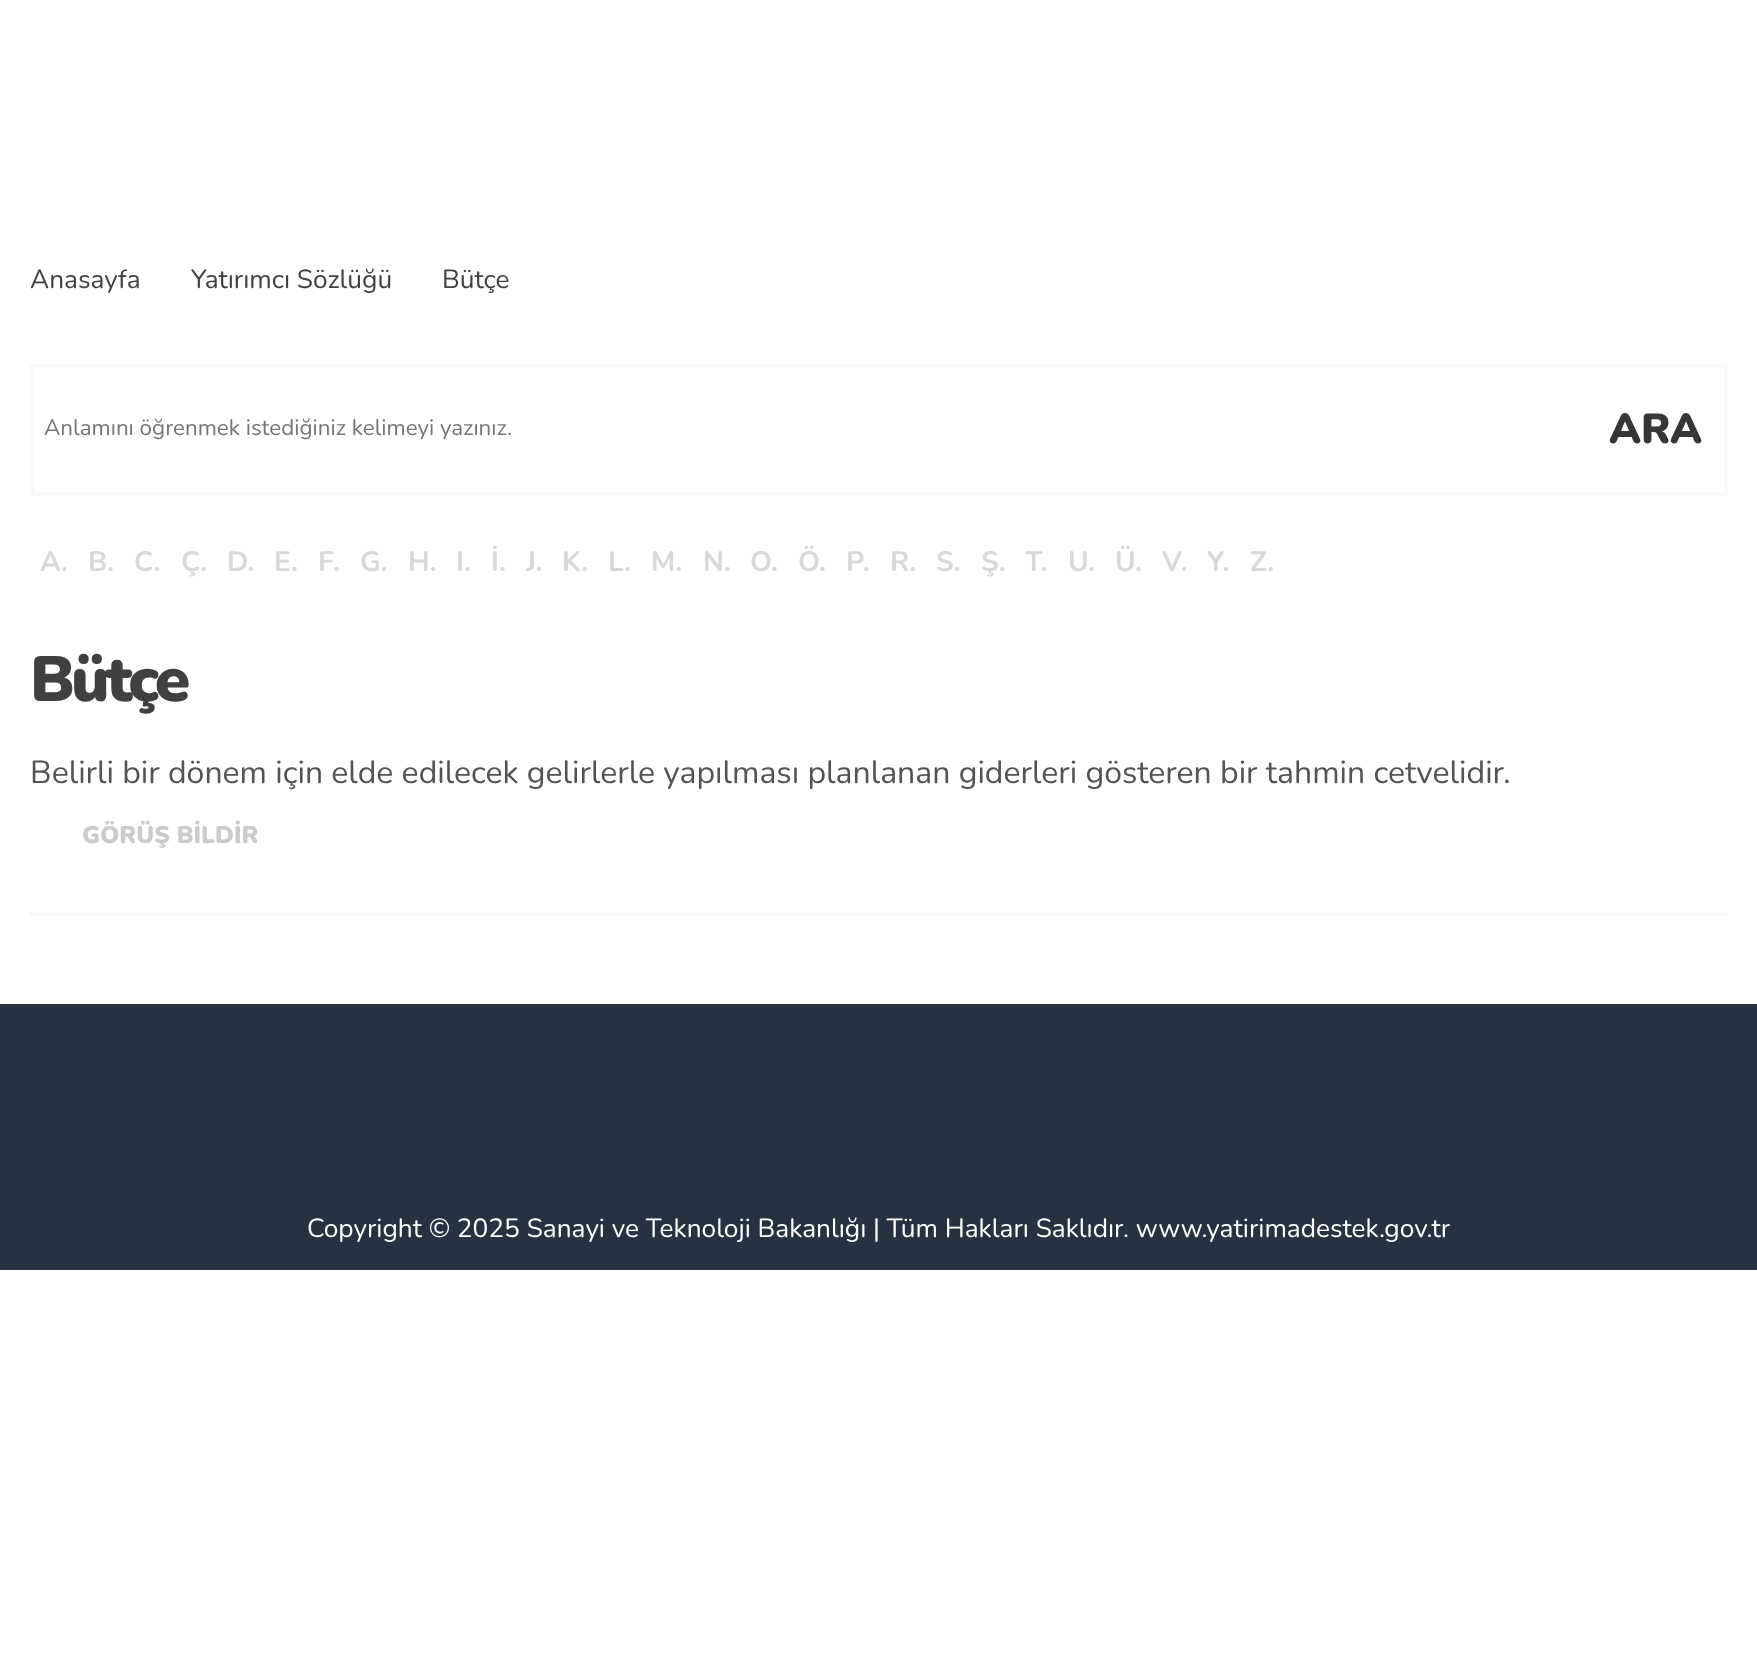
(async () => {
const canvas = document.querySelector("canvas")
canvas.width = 1757
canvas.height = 1658
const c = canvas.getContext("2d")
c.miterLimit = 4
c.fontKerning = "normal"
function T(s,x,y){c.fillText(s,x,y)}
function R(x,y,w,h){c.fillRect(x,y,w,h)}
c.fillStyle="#fff"
R(0,0,1757,1658)
c.font="26.25px Nunito"
c.fillStyle="#404040"
T("Anasayfa",30,288)
T("Yatırımcı Sözlüğü",191,288)
T("Bütçe",442,288)
c.beginPath()
c.roundRect(32,366,1694,128,2)
c.strokeStyle="#f8f8f8"
c.lineWidth=4
c.stroke()
c.font="22.4px Nunito"
c.fillStyle="#757575"
T("Anlamını öğrenmek istediğiniz kelimeyi yazınız.",44,435)
c.font="900 42px Nunito"
c.fillStyle="#363636"
T("ARA",1609,443)
c.font="bold 28px Nunito"
c.fillStyle="#d8d8d8"
T("A.",40,571)
T("B.",88,571)
T("C.",134,571)
T("Ç.",181,571)
T("D.",227,571)
T("E.",274,571)
T("F.",318,571)
T("G.",360,571)
T("H.",408,571)
T("I.",456,571)
T("İ.",491,571)
T("J.",526,571)
T("K.",562,571)
T("L.",608,571)
T("M.",651,571)
T("N.",703,571)
T("O.",750,571)
T("Ö.",798,571)
T("P.",846,571)
T("R.",890,571)
T("S.",936,571)
T("Ş.",981,571)
T("T.",1025,571)
T("U.",1068,571)
T("Ü.",1115,571)
T("V.",1162,571)
T("Y.",1207,571)
T("Z.",1250,571)
c.fillStyle="#f8f8f8"
R(30,912,1698,4)
c.letterSpacing="-4px"
c.font="900 64px Nunito"
c.fillStyle="#404040"
T("Bütçe",30,701)
c.letterSpacing="0px"
c.font="32px Nunito"
c.fillStyle="#535353"
T("Belirli bir dönem için elde edilecek gelirlerle yapılması planlanan giderleri gösteren bir tahmin cetvelidir.",30,783)
c.font="900 24px Nunito"
c.fillStyle="#cbcbcb"
T("GÖRÜŞ BİLDİR",82,843)
c.fillStyle="#283142"
R(0,1004,1757,266)
c.font="26.25px Nunito"
c.fillStyle="#fff"
T("Copyright © 2025 Sanayi ve Teknoloji Bakanlığı | Tüm Hakları Saklıdır. www.yatirimadestek.gov.tr",307,1237)
})()
